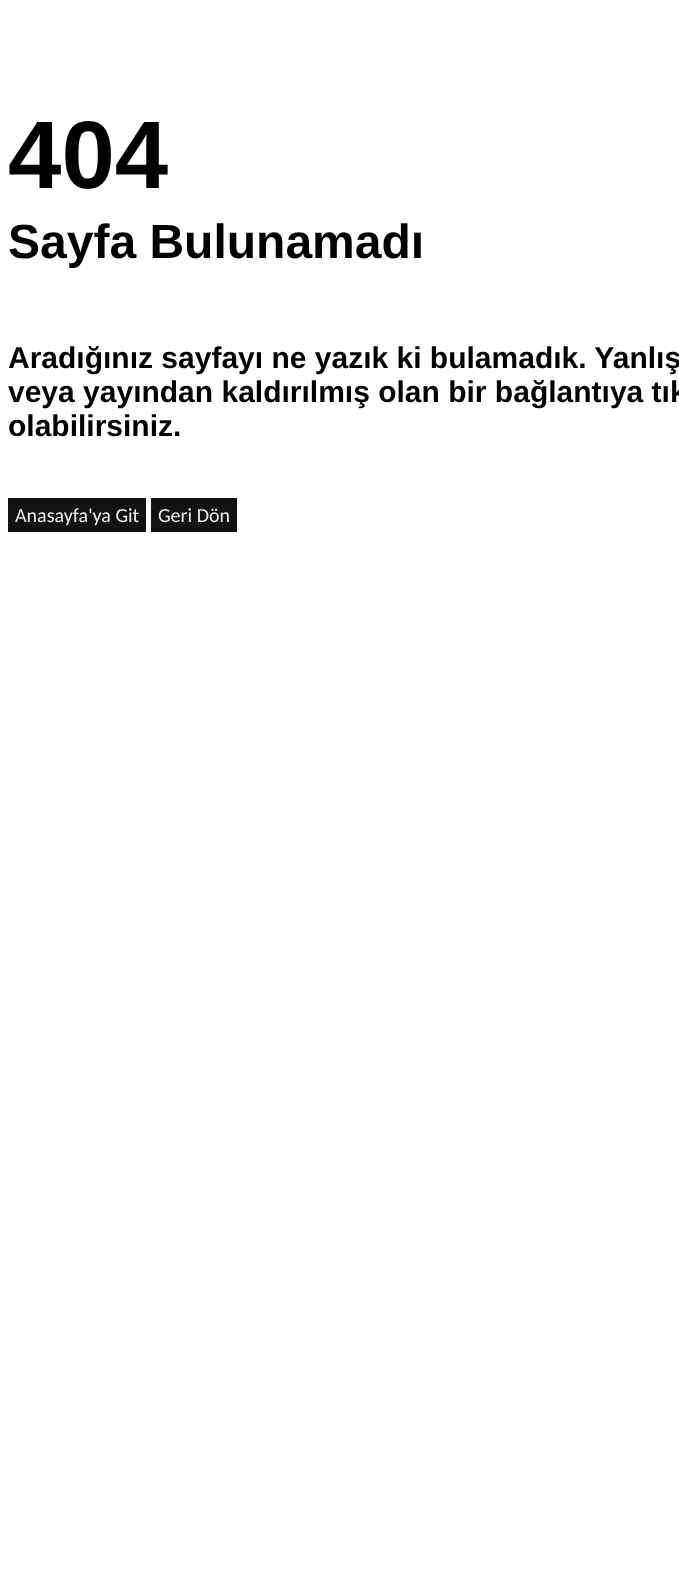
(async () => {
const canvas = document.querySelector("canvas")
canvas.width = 679
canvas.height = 1573
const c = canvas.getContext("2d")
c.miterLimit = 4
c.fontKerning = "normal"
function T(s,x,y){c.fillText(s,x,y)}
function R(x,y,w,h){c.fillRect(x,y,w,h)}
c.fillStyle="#fff"
R(0,0,679,1573)
c.font="bold 96px Liberation Sans"
c.fillStyle="#000"
T("404",8,188)
c.font="bold 48px Liberation Sans"
T("Sayfa Bulunamadı",8,258)
c.font="bold 30px Liberation Sans"
T("Aradığınız sayfayı ne yazık ki bulamadık. Yanlış",8,368)
T("veya yayından kaldırılmış olan bir bağlantıya tık",8,402)
T("olabilirsiniz.",8,436)
c.fillStyle="#111"
R(8,498,138,34)
c.font="20px Carlito"
c.fillStyle="#eee"
T("Anasayfa'ya Git",15,522)
c.fillStyle="#111"
R(151,498,86,34)
c.fillStyle="#eee"
T("Geri Dön",158,522)
})()
